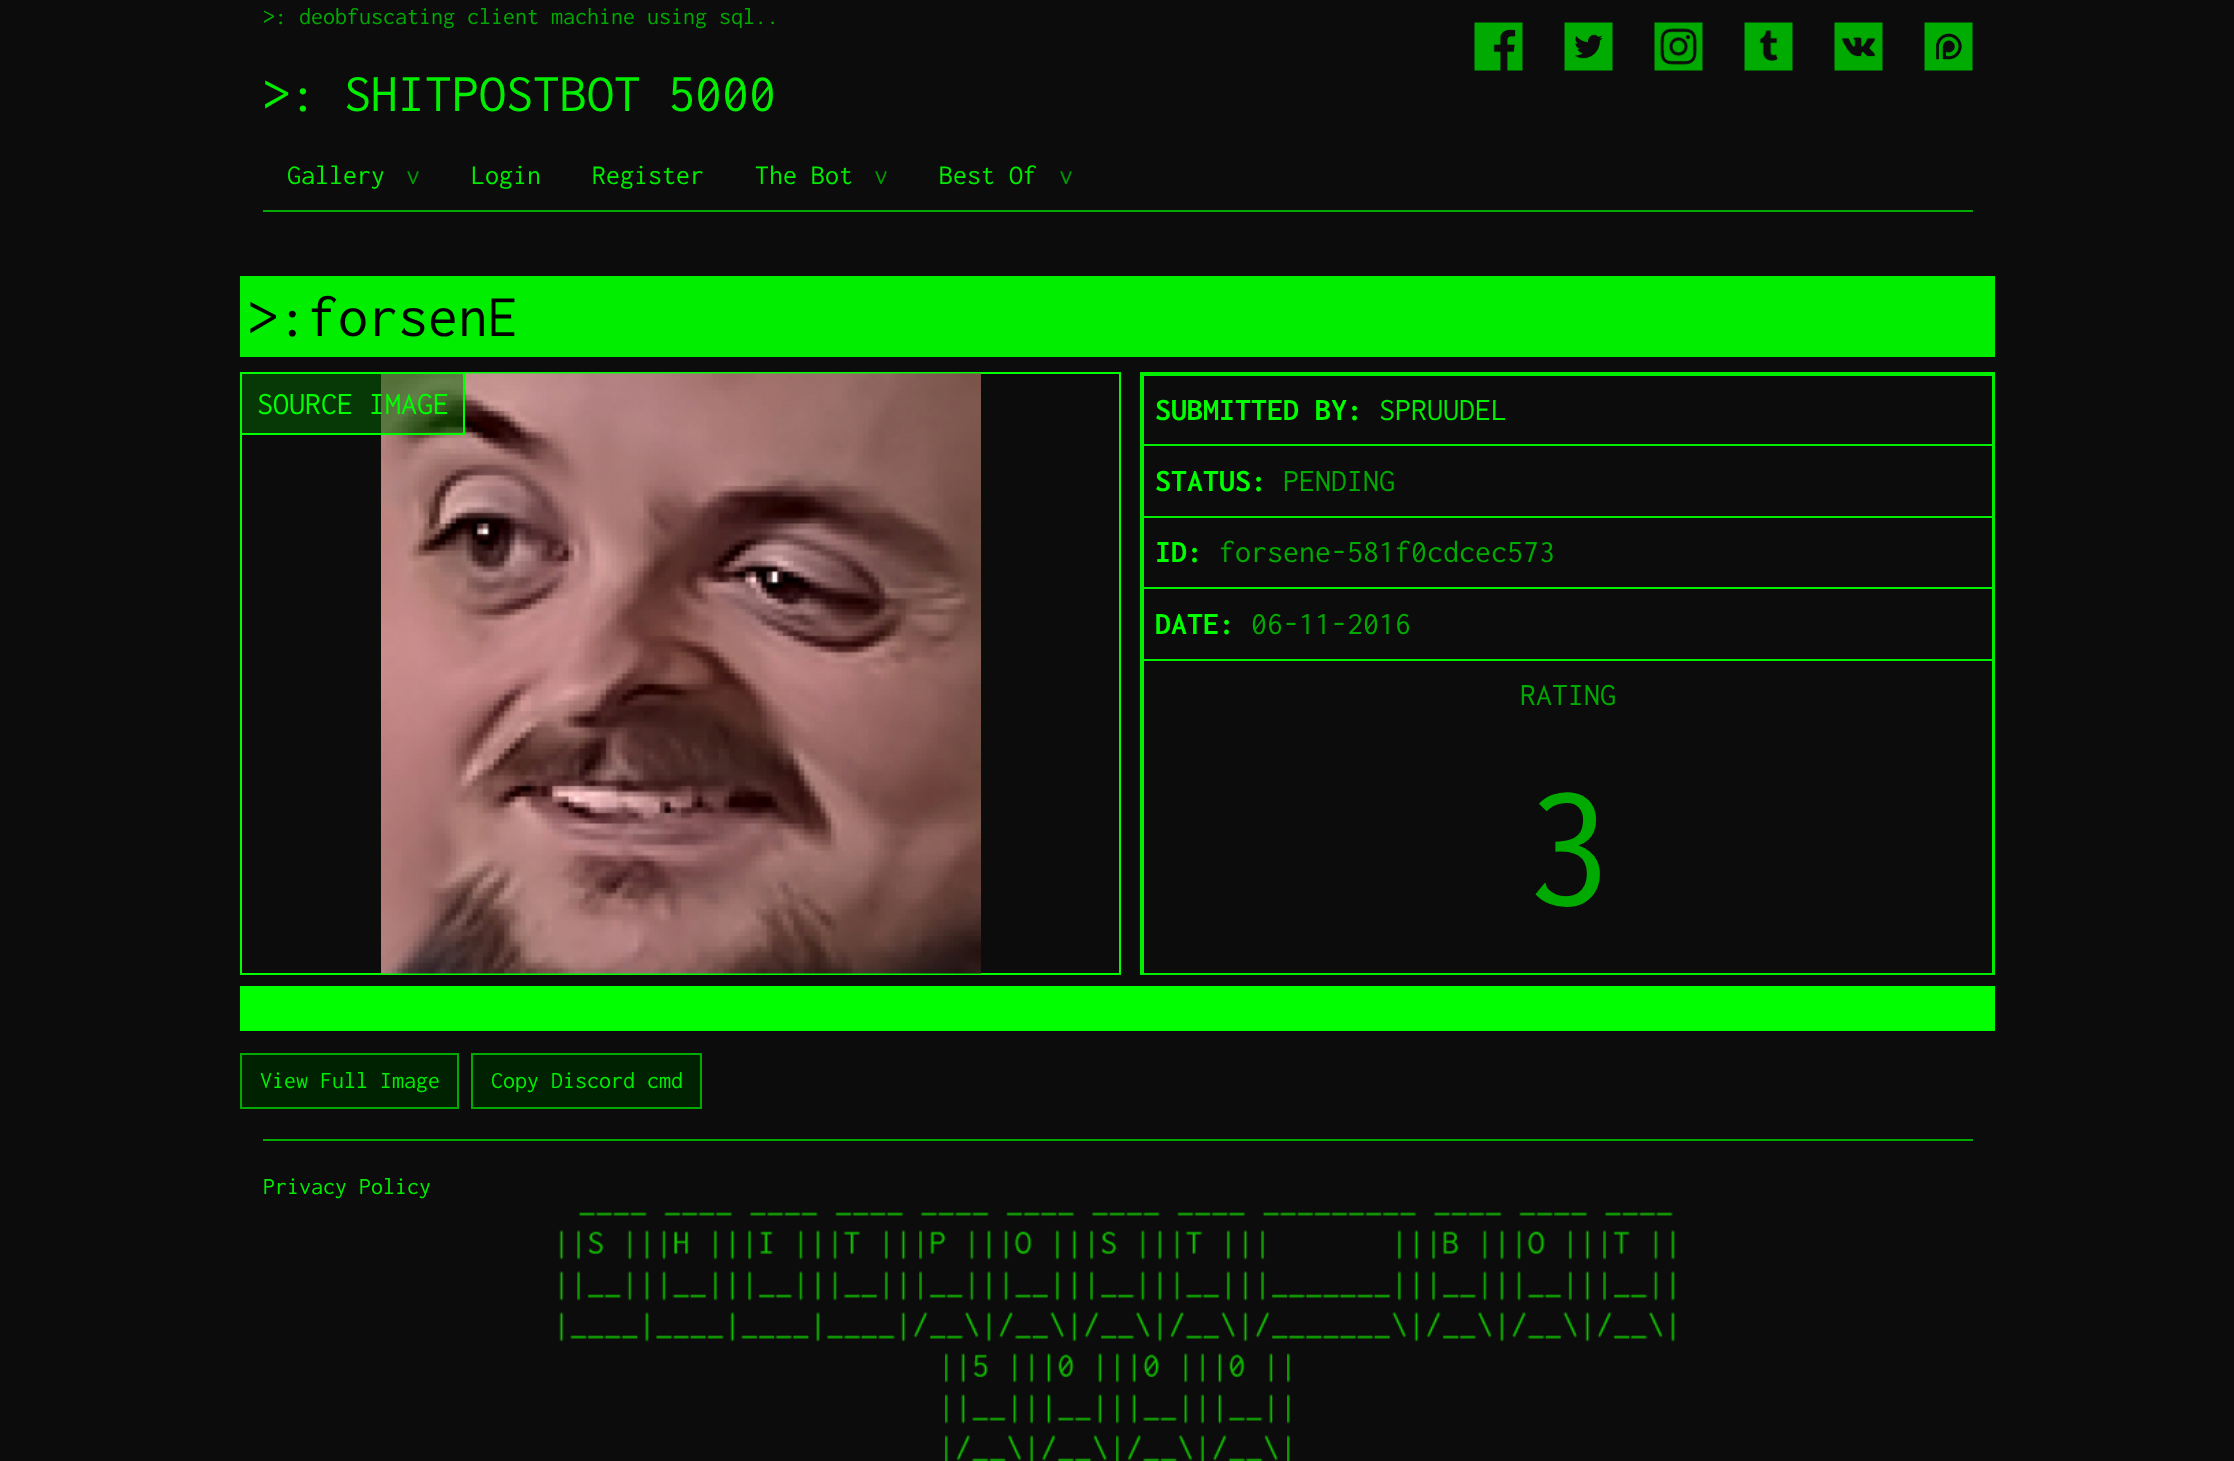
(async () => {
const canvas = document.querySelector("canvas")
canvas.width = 2234
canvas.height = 1461
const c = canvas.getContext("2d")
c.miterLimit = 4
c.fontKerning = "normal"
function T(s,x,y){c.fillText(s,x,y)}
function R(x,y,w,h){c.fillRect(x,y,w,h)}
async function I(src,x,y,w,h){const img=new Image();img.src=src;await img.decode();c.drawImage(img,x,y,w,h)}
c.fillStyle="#0c0c0c"
R(0,0,2234,1461)
c.font="24px Inconsolata"
c.fillStyle="#01aa01"
T(">: deobfuscating client machine using sql..",263,24)
await I("1.png",1474,22,49,49)
await I("2.png",1564,22,49,49)
await I("3.png",1654,22,49,49)
await I("4.png",1744,22,49,49)
await I("5.png",1834,22,49,49)
await I("6.png",1924,22,49,49)
c.font="54px Inconsolata"
c.fillStyle="#01ee01"
T(">: SHITPOSTBOT 5000",263,111)
c.fillStyle="#01aa01"
R(263,210,1710,2)
c.font="28px Inconsolata"
c.fillStyle="#01ee01"
T("Gallery",287,184)
c.fillStyle="#019901"
T("v",406,184)
c.fillStyle="#01ee01"
T("Login",471,184)
T("Register",592,184)
T("The Bot",755,184)
c.fillStyle="#019901"
T("v",874,184)
c.fillStyle="#01ee01"
T("Best Of",939,184)
c.fillStyle="#019901"
T("v",1059,184)
c.fillStyle="#01ee01"
R(240,276,1755,81)
c.font="60px Inconsolata"
c.fillStyle="#010101"
T(">:forsenE",248,336)
c.strokeStyle="#01ff01"
c.lineWidth=2
c.strokeRect(241,373,879,601)
await I("7.png",381,373,600,601)
c.fillStyle="#01660180"
c.beginPath()
c.rect(241,373,223,61)
c.fill()
c.stroke()
c.font="32px Inconsolata"
c.fillStyle="#01ff01"
T("SOURCE IMAGE",257,414)
c.strokeStyle="#01ee01"
c.strokeRect(1141,373,853,601)
c.fillStyle="#01ee01"
R(1142,374,852,2)
R(1142,444,852,2)
R(1142,516,852,2)
R(1142,587,852,2)
R(1142,659,852,2)
R(1992,659,1,315)
R(1992,587,1,73)
R(1992,516,1,72)
R(1992,444,1,74)
R(1992,374,1,72)
R(1142,659,2,315)
R(1142,587,2,73)
R(1142,516,2,72)
R(1142,444,2,74)
R(1142,374,2,72)
c.font="bold 32px Inconsolata"
c.fillStyle="#01ff01"
T("SUBMITTED BY:",1155,420)
c.font="32px Inconsolata"
c.fillStyle="#01ee01"
T("SPRUUDEL",1379,420)
c.font="bold 32px Inconsolata"
c.fillStyle="#01ff01"
T("STATUS:",1155,491)
c.font="32px Inconsolata"
c.fillStyle="#01aa01"
T("PENDING",1283,491)
c.font="bold 32px Inconsolata"
c.fillStyle="#01ff01"
T("ID:",1155,562)
c.font="32px Inconsolata"
c.fillStyle="#01aa01"
T("forsene-581f0cdcec573",1219,562)
c.font="bold 32px Inconsolata"
c.fillStyle="#01ff01"
T("DATE:",1155,634)
c.font="32px Inconsolata"
c.fillStyle="#01aa01"
T("06-11-2016",1251,634)
T("RATING",1520,705)
c.font="180px Inconsolata"
T("3",1523,905)
c.fillStyle="#01ff01"
R(240,986,1755,45)
c.fillStyle="#020"
c.beginPath()
c.rect(241,1054,217,54)
c.fill()
c.strokeStyle="#01aa01"
c.stroke()
c.font="24px Inconsolata"
c.fillStyle="#01ee01"
T("View Full Image",260,1088)
c.fillStyle="#020"
c.beginPath()
c.rect(472,1054,229,54)
c.fill()
c.stroke()
c.fillStyle="#01ee01"
T("Copy Discord cmd",491,1088)
c.fillStyle="#01aa01"
R(263,1139,1710,2)
c.fillStyle="#01ee01"
T("Privacy Policy",263,1194)
await I("8.png",559,1212,1116,249)
})()
